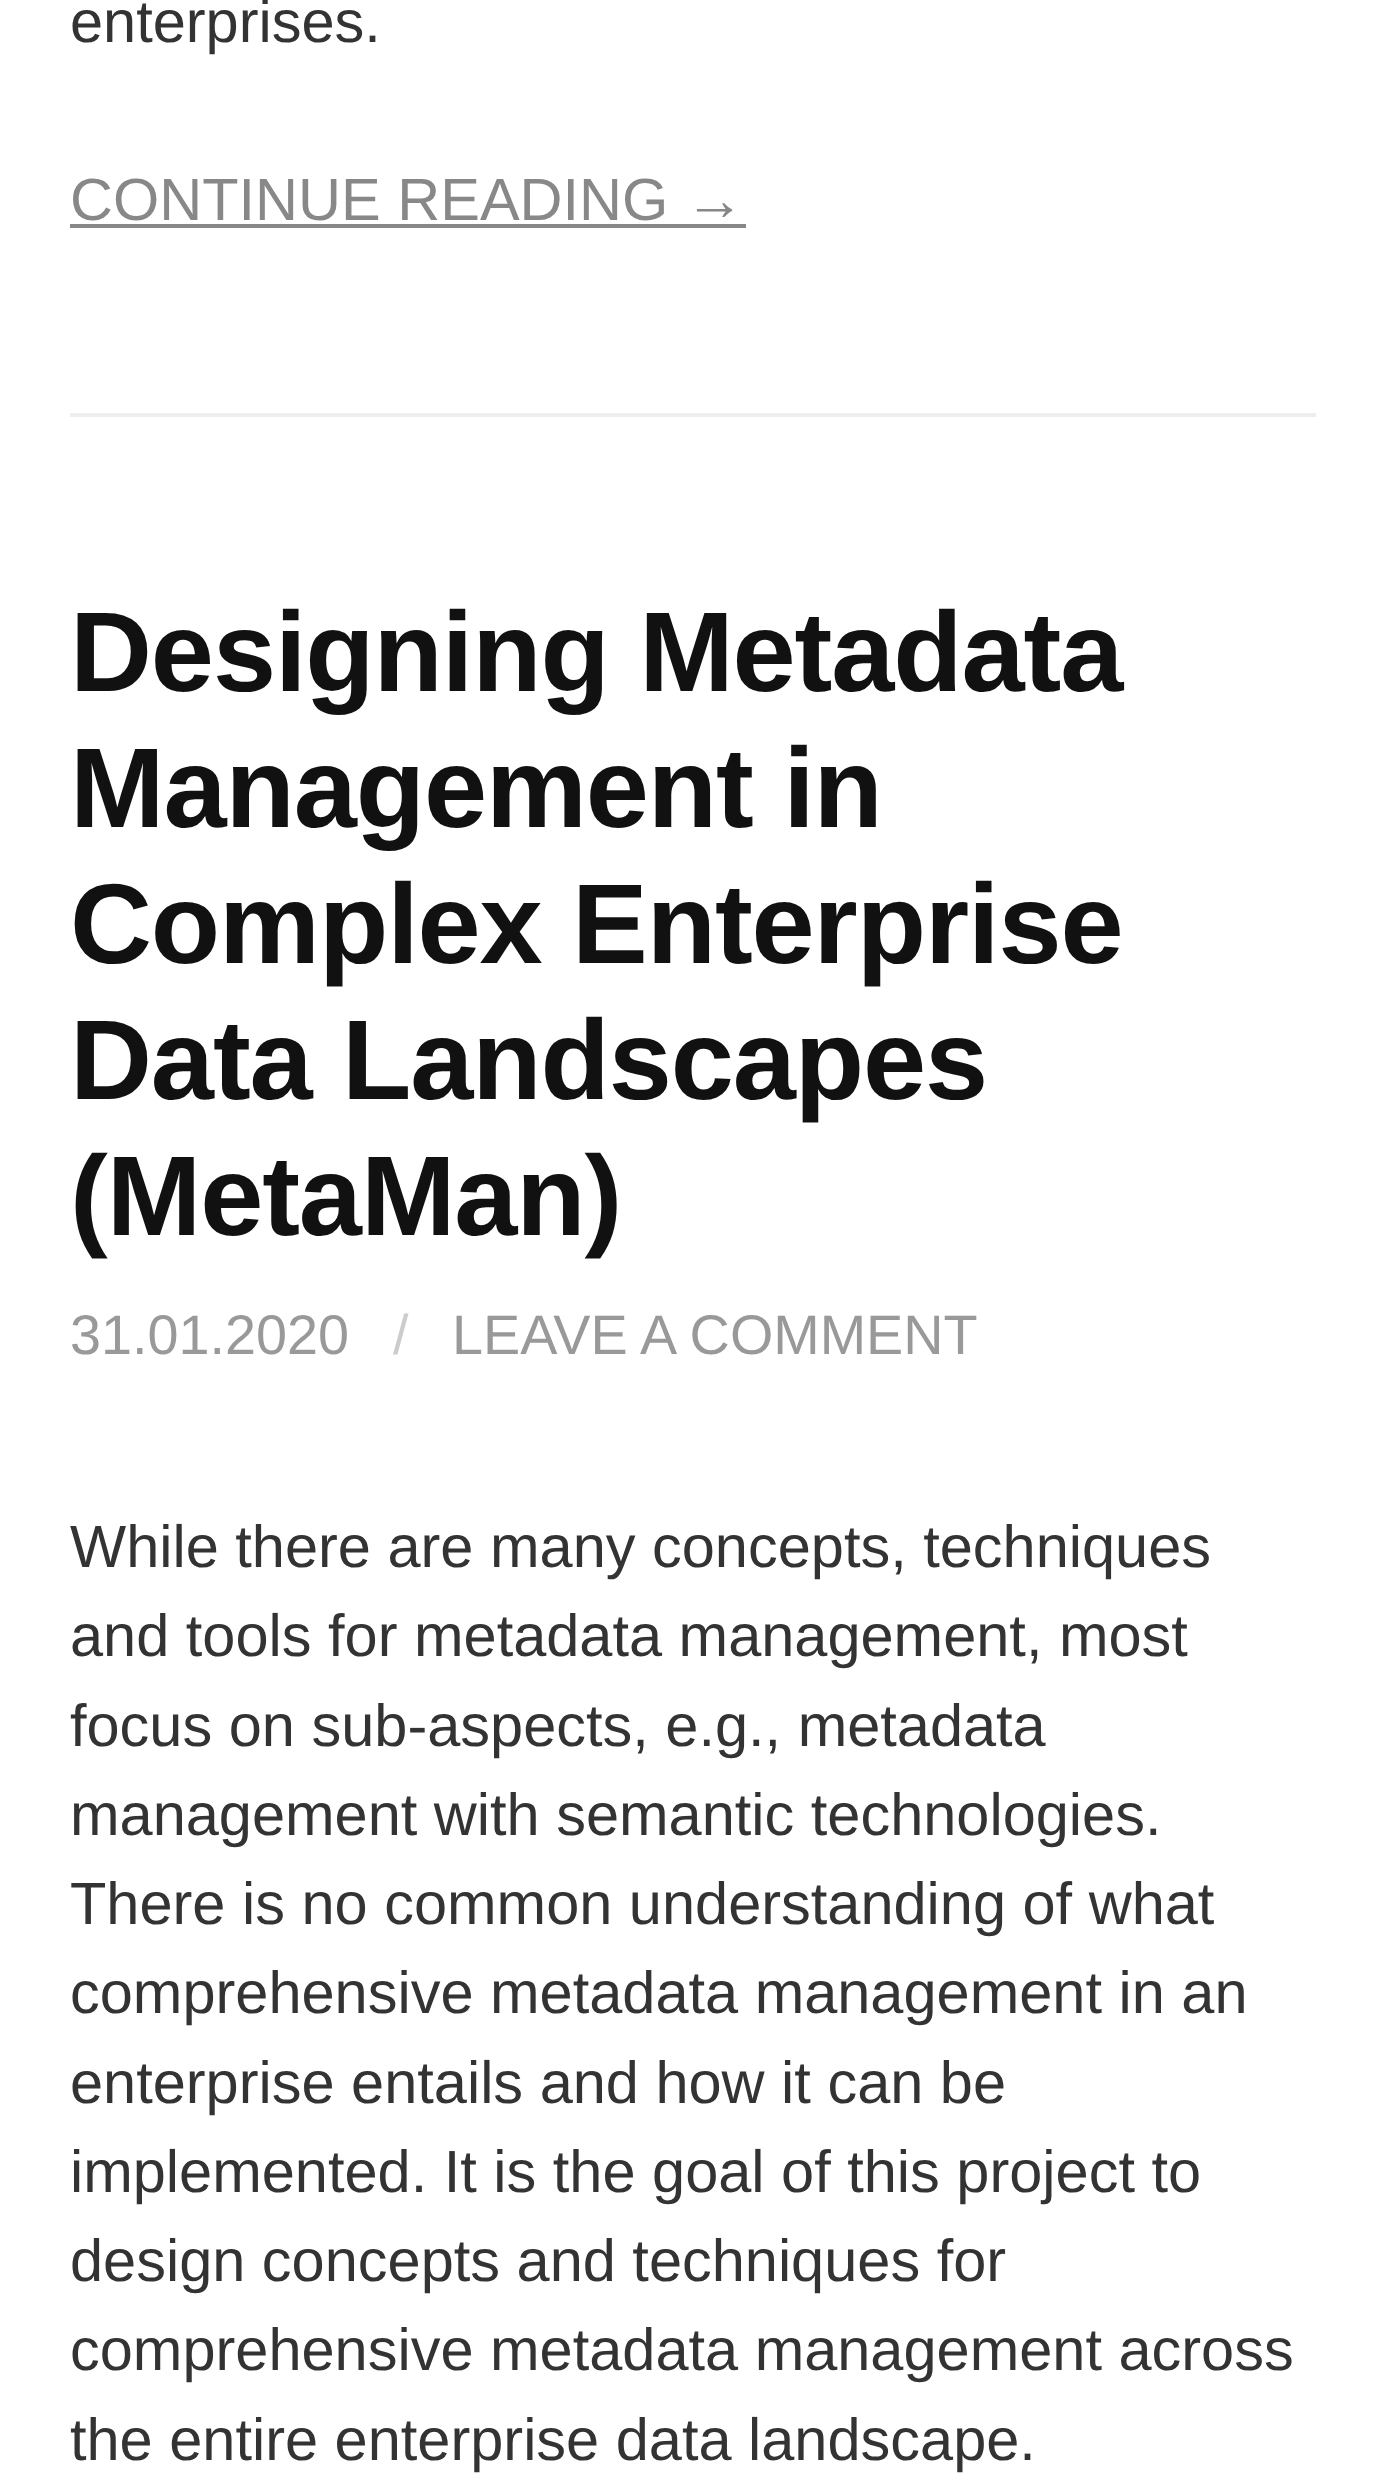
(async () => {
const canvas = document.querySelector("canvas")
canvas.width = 1384
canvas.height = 2485
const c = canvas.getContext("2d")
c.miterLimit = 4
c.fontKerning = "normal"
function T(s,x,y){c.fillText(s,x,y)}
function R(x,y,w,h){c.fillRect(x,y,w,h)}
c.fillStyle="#fff"
R(0,0,1384,2485)
c.fillStyle="#eee"
R(70,413,1246,4)
c.font="59.5px Liberation Sans"
c.fillStyle="#333"
T("enterprises.",70,42)
c.fillStyle="#888"
T("CONTINUE READING →",70,220)
R(70,224,676,4)
c.letterSpacing="-1.1px"
c.font="bold 113.5px Liberation Sans"
c.fillStyle="#111"
T("Designing Metadata",70,691)
T("Management in",70,827)
T("Complex Enterprise",70,963)
T("Data Landscapes",70,1099)
T("(MetaMan)",70,1235)
c.letterSpacing="0px"
c.font="55.75px Liberation Sans"
c.fillStyle="#999"
T("31.01.2020",70,1354)
c.fillStyle="#ccc"
T("/",393,1354)
c.fillStyle="#999"
T("LEAVE A COMMENT",452,1354)
c.font="59.5px Liberation Sans"
c.fillStyle="#333"
T("While there are many concepts, techniques",70,1567)
T("and tools for metadata management, most",70,1656)
T("focus on sub-aspects, e.g., metadata",70,1746)
T("management with semantic technologies.",70,1835)
T("There is no common understanding of what",70,1924)
T("comprehensive metadata management in an",70,2013)
T("enterprise entails and how it can be",70,2103)
T("implemented. It is the goal of this project to",70,2192)
T("design concepts and techniques for",70,2281)
T("comprehensive metadata management across",70,2370)
T("the entire enterprise data landscape.",70,2460)
})()
